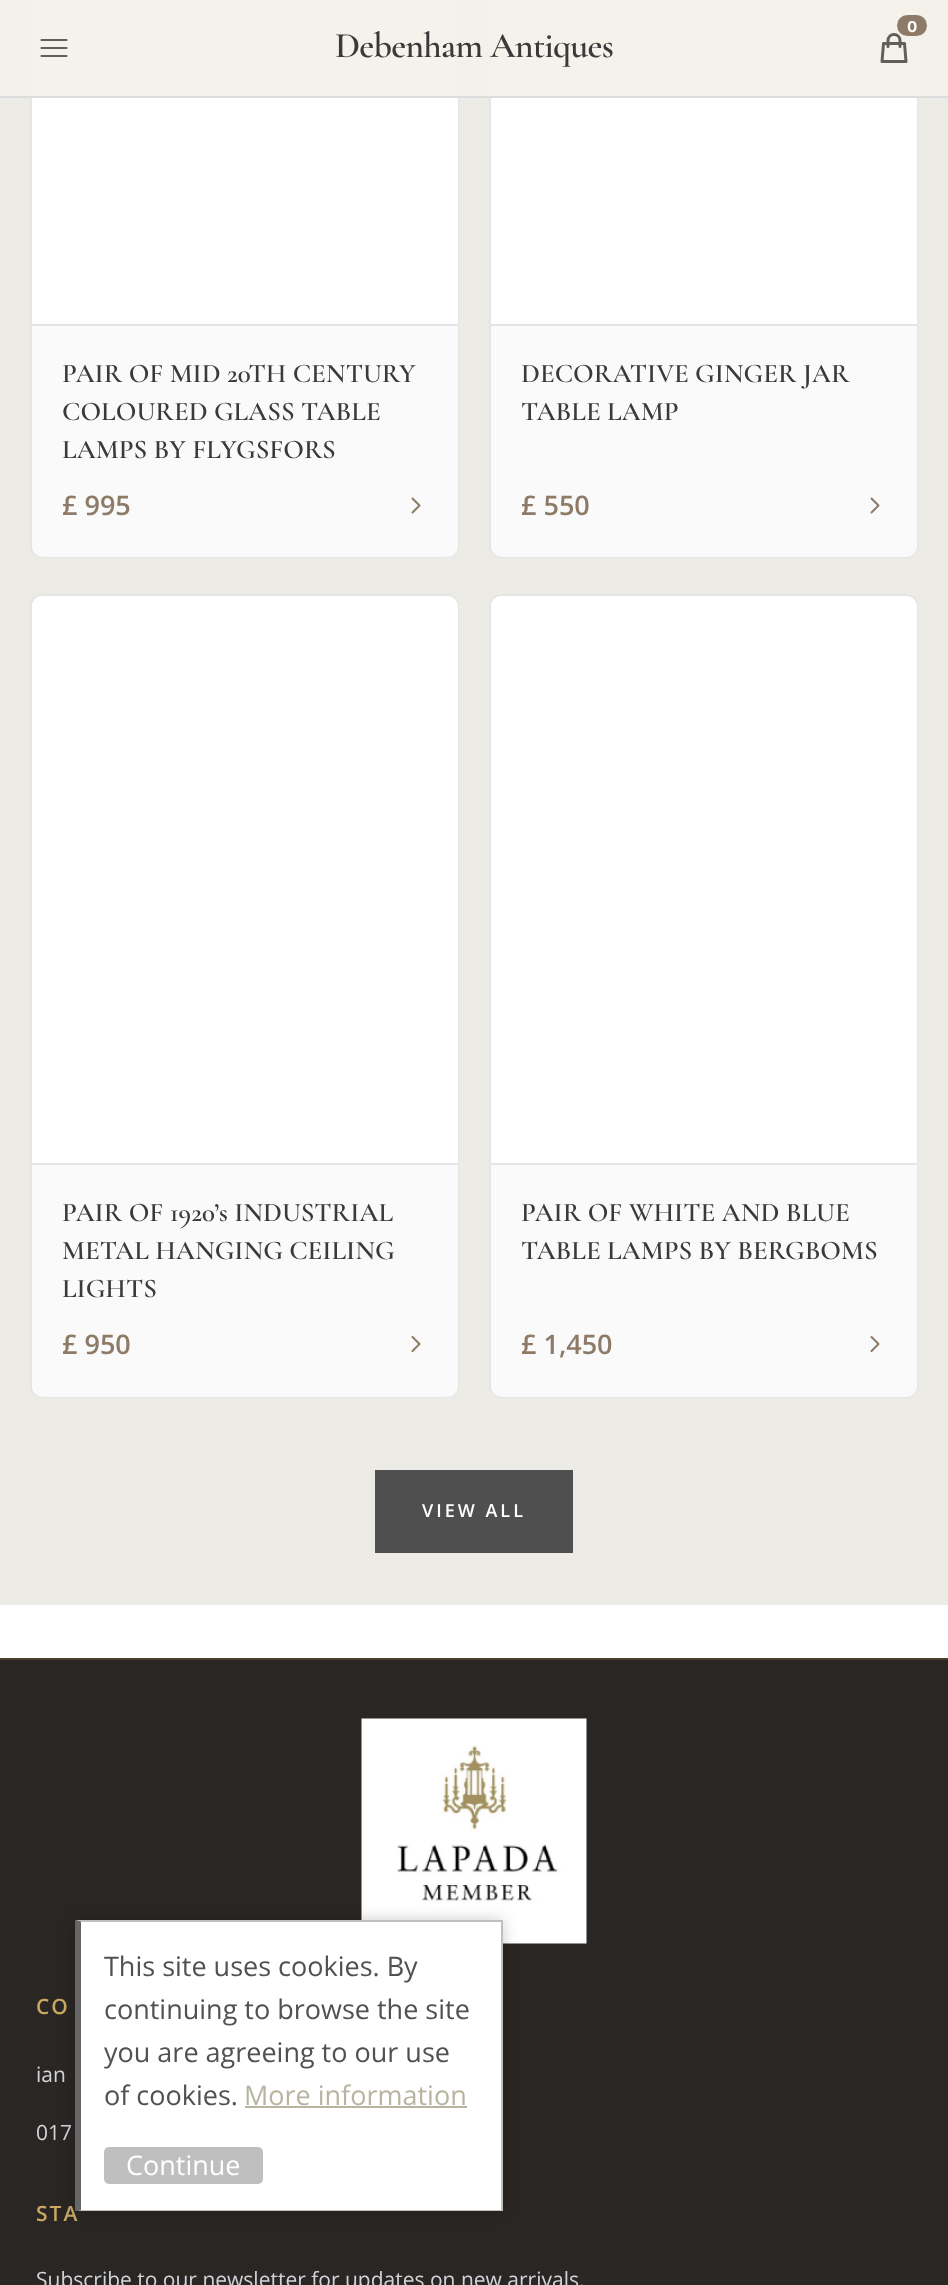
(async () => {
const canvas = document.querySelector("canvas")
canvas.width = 948
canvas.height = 2285
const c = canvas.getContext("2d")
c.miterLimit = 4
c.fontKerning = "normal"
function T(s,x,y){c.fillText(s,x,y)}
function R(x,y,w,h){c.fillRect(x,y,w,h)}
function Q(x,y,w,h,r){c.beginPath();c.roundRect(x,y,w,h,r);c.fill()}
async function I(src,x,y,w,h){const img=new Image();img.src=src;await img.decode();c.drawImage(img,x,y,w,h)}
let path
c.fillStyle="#fff"
R(0,0,948,2285)
c.fillStyle="#ecebe6"
R(0,0,948,1605)
c.beginPath()
c.roundRect(31,-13,427,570,11)
c.strokeStyle="#e5e5e5"
c.lineWidth=2
c.stroke()
c.fillStyle="#fff"
R(32,0,426,324)
c.beginPath()
c.roundRect(490,-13,427,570,11)
c.stroke()
R(491,0,426,324)
c.fillStyle="#f4f1eaf2"
R(0,0,948,96)
c.fillStyle="#dcdcdc"
R(0,96,948,2)
path = new Path2D("M900 46.5v-6c0-3.5-2.5-6-6-6c-3.5 0-6 2.5-6 6v6m-4.5-3h21l1.5 18h-24z")
c.strokeStyle="#5f5f5d"
c.lineWidth=3
c.lineCap="round"
c.lineJoin="round"
c.stroke(path)
c.fillStyle="#8d7b68"
Q(897,15,30,21,10.5)
c.font="bold 15px Inter"
c.fillStyle="#fff"
T("0",907,32)
path = new Path2D("M41.5 40h25m-25 8h25m-25 8h25")
c.lineWidth=2.2
c.stroke(path)
c.letterSpacing="-0.75px"
c.font="600 36px Cormorant Garamond"
c.fillStyle="#3a3a3a"
T("Debenham Antiques",335,57)
c.fillStyle="#fafafa"
c.beginPath()
c.roundRect(32,324,426,233,[0,0,11,11])
c.fill()
c.fillStyle="#e5e5e5"
R(32,324,426,2)
c.letterSpacing="0px"
c.font="600 27px Cormorant Garamond"
c.fillStyle="#3a3a3a"
T("PAIR OF MID 20TH CENTURY",62,382)
T("COLOURED GLASS TABLE",62,420)
T("LAMPS BY FLYGSFORS",62,458)
c.font="600 27px Open Sans"
c.fillStyle="#8d7b68"
T("£ 995",62,515)
path = new Path2D("M412.5 498.5l7 7l-7 7")
c.strokeStyle="#8d7b68"
c.lineWidth=2
c.stroke(path)
c.fillStyle="#fafafa"
c.beginPath()
c.roundRect(491,324,426,233,[0,0,11,11])
c.fill()
c.fillStyle="#e5e5e5"
R(491,324,426,2)
c.font="600 27px Cormorant Garamond"
c.fillStyle="#3a3a3a"
T("DECORATIVE GINGER JAR",521,382)
T("TABLE LAMP",521,420)
c.font="600 27px Open Sans"
c.fillStyle="#8d7b68"
T("£ 550",521,515)
path = new Path2D("M871.5 498.5l7 7l-7 7")
c.stroke(path)
c.fillStyle="#fff"
c.beginPath()
c.roundRect(31,595,427,802,11)
c.fill()
c.strokeStyle="#e5e5e5"
c.lineJoin="miter"
c.stroke()
c.beginPath()
c.roundRect(32,596,426,567,[11,11,0,0])
c.fill()
c.fillStyle="#fafafa"
c.beginPath()
c.roundRect(32,1163,426,234,[0,0,11,11])
c.fill()
c.fillStyle="#e5e5e5"
R(32,1163,426,2)
c.font="600 27px Cormorant Garamond"
c.fillStyle="#3a3a3a"
T("PAIR OF 1920’s INDUSTRIAL",62,1221)
T("METAL HANGING CEILING",62,1259)
T("LIGHTS",62,1297)
c.font="600 27px Open Sans"
c.fillStyle="#8d7b68"
T("£ 950",62,1354)
path = new Path2D("M412.5 1337l7 7l-7 7")
c.strokeStyle="#8d7b68"
c.lineJoin="round"
c.stroke(path)
c.fillStyle="#fff"
c.beginPath()
c.roundRect(490,595,427,802,11)
c.fill()
c.strokeStyle="#e5e5e5"
c.lineJoin="miter"
c.stroke()
c.beginPath()
c.roundRect(491,596,426,567,[11,11,0,0])
c.fill()
c.fillStyle="#fafafa"
c.beginPath()
c.roundRect(491,1163,426,234,[0,0,11,11])
c.fill()
c.fillStyle="#e5e5e5"
R(491,1163,426,2)
c.font="600 27px Cormorant Garamond"
c.fillStyle="#3a3a3a"
T("PAIR OF WHITE AND BLUE",521,1221)
T("TABLE LAMPS BY BERGBOMS",521,1259)
c.font="600 27px Open Sans"
c.fillStyle="#8d7b68"
T("£ 1,450",521,1354)
path = new Path2D("M871.5 1337l7 7l-7 7")
c.strokeStyle="#8d7b68"
c.lineJoin="round"
c.stroke(path)
c.fillStyle="#4f4f4f"
R(375,1470,198,83)
c.letterSpacing="3px"
c.font="600 18px Open Sans"
c.fillStyle="#fff"
T("VIEW ALL",422,1517)
c.fillStyle="#2a2624"
R(0,1660,948,625)
c.fillStyle="#4a4030"
R(0,1658,948,2)
await I("1.png",361,1718,226,226)
c.letterSpacing="2px"
c.font="600 21px Open Sans"
c.fillStyle="#c9a961"
T("CO",36,2014)
c.letterSpacing="0px"
c.font="21px Open Sans"
c.fillStyle="#d1d5db"
T("ian",36,2082)
T("017",36,2140)
c.letterSpacing="2px"
c.font="600 21px Open Sans"
c.fillStyle="#c9a961"
T("STA",36,2221)
c.letterSpacing="0px"
c.font="21px Open Sans"
c.fillStyle="#d1d5db"
T("Subscribe to our newsletter for updates on new arrivals.",36,2287)
c.fillStyle="#00000033"
c.filter="blur(7.5px)"
c.beginPath()
c.rect(75,1920,428,291)
c.fill()
c.filter="none"
c.fillStyle="#fff"
R(81,1922,420,288)
c.fillStyle="#bfbfbf"
path = new Path2D("M75 1920h427l-1 2h-420z")
c.fill(path)
R(501,1920,2,291)
path = new Path2D("M502 2211h-427l6-1h420z")
c.fill(path)
c.fillStyle="#666"
path = new Path2D("M75 2211v-291l6 2v288z")
c.fill(path)
c.font="27px Open Sans"
c.fillStyle="#525050"
T("This site uses cookies. By",104,1976)
T("continuing to browse the site",104,2019)
T("you are agreeing to our use",104,2062)
T("of cookies.",104,2105)
c.fillStyle="#b7b4a1"
T("More information",244,2105)
R(245,2106,222,2)
c.fillStyle="#bfbfbf"
Q(104,2147,159,37,5)
c.fillStyle="#fff"
T("Continue",126,2175)
})()
